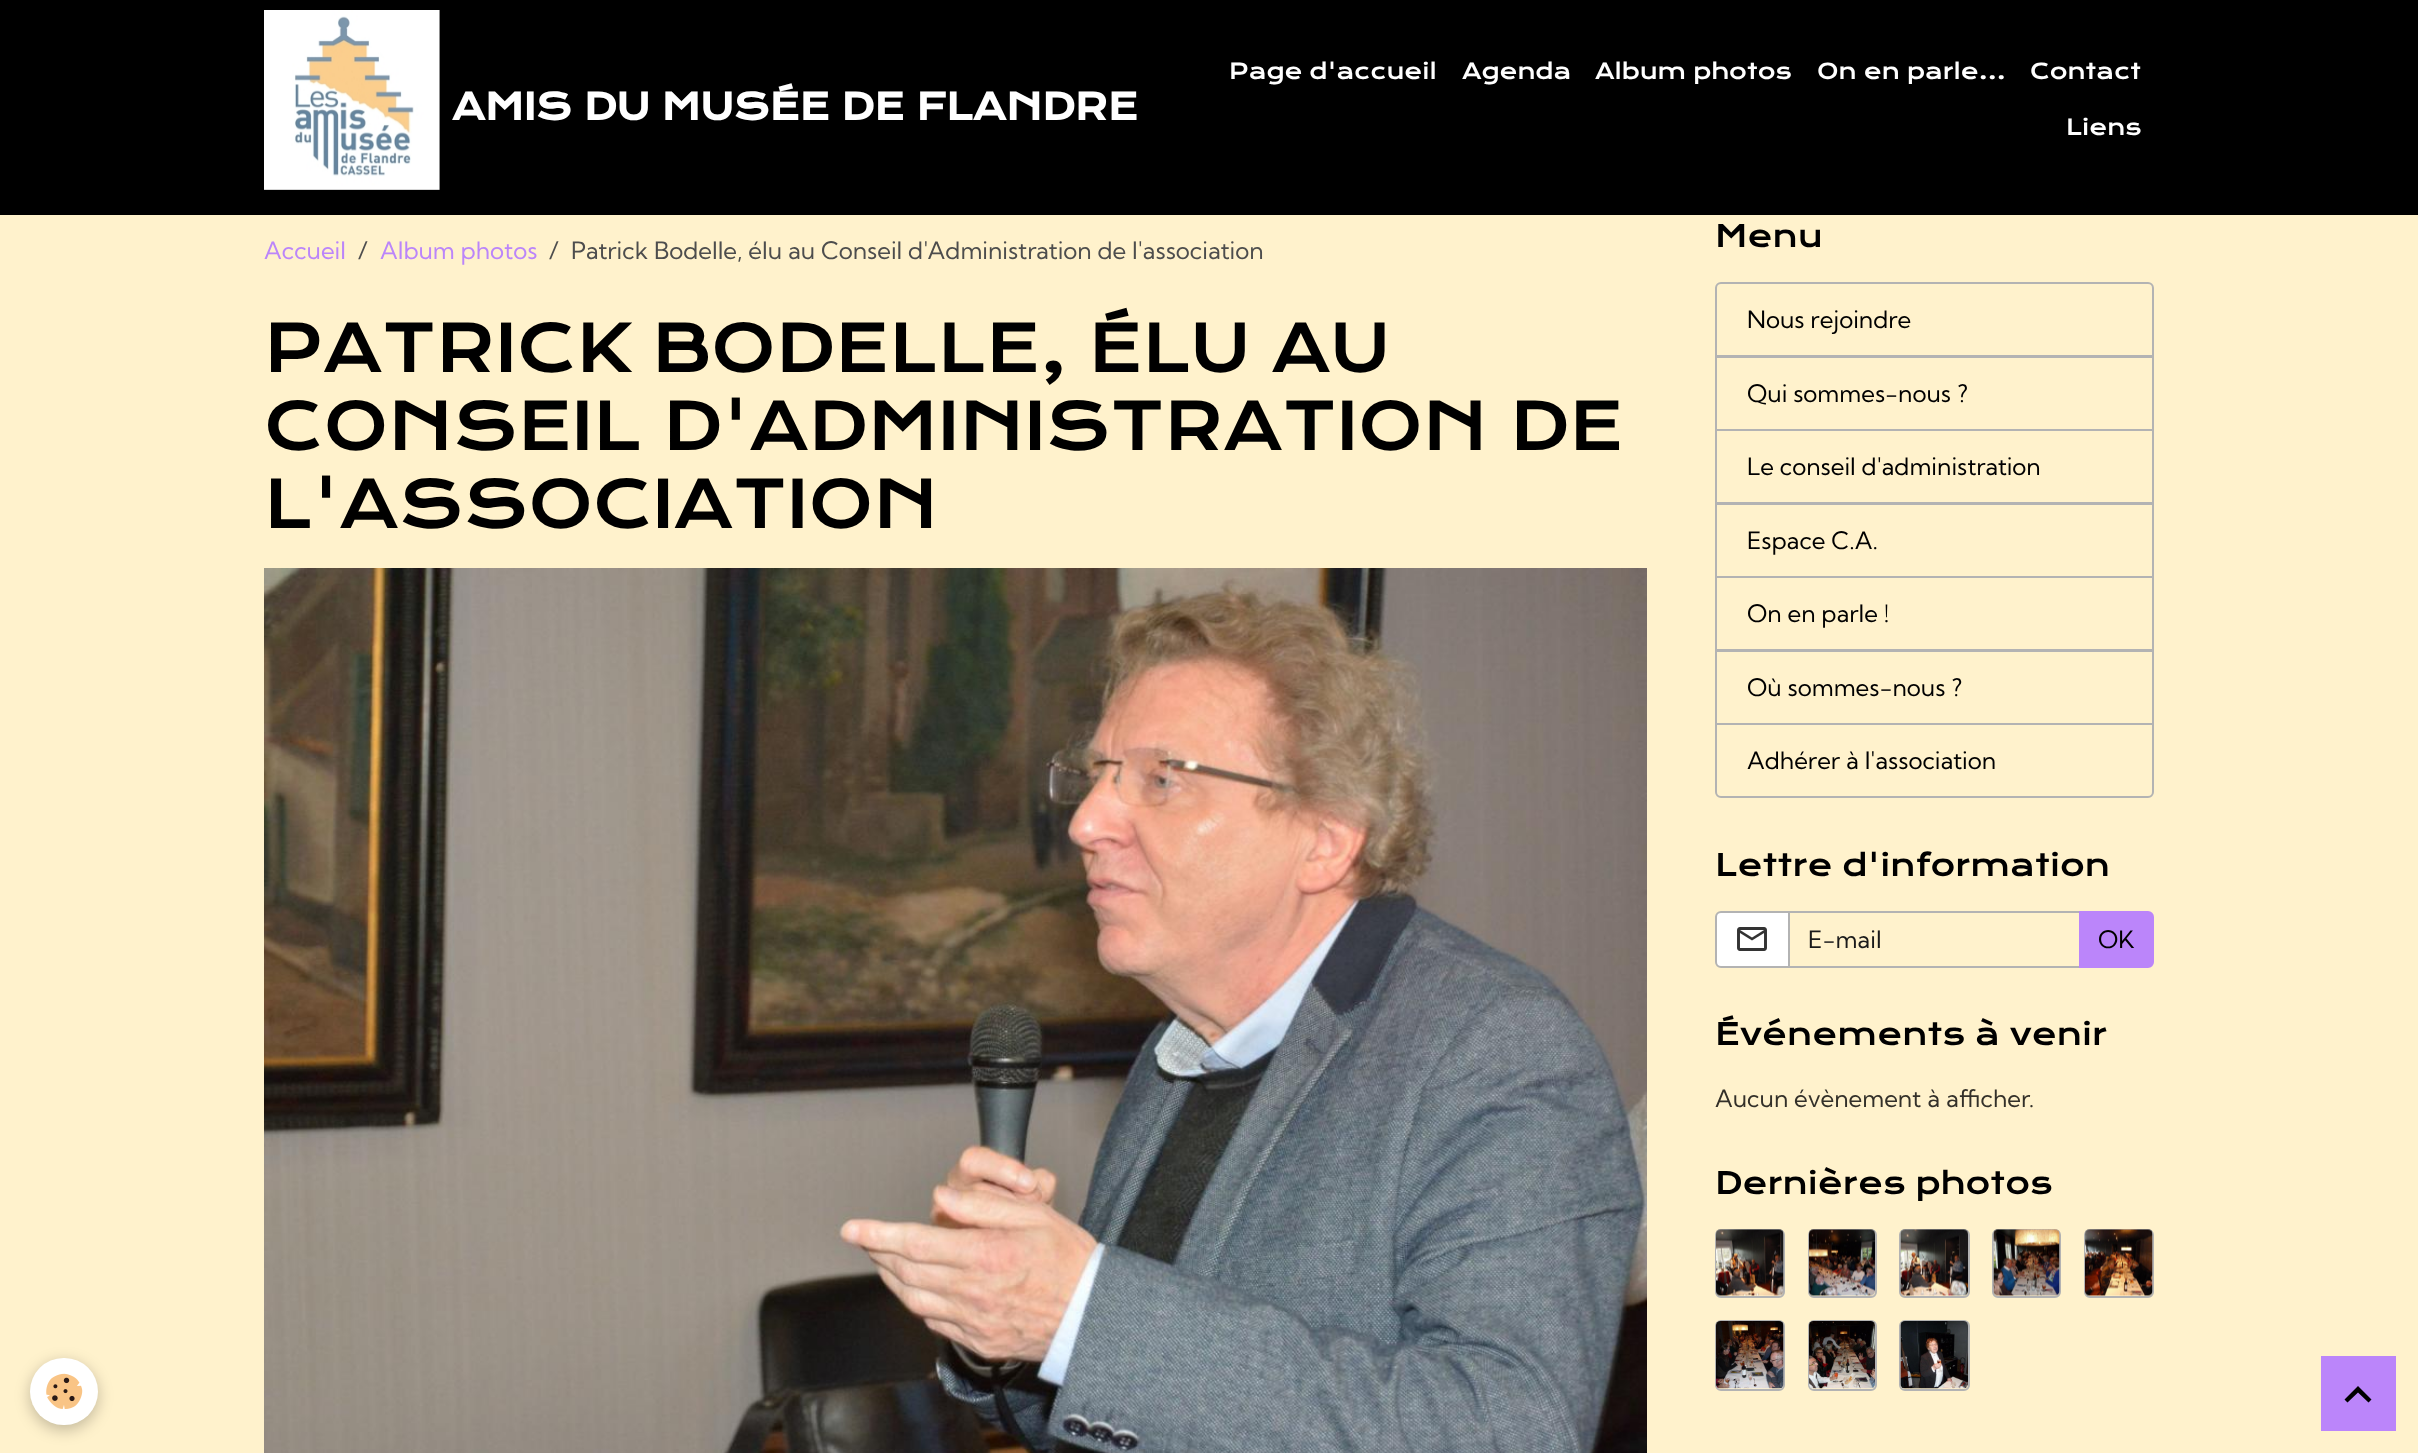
(async () => {
const canvas = document.querySelector("canvas")
canvas.width = 2418
canvas.height = 1453
const c = canvas.getContext("2d")
c.miterLimit = 4
c.fontKerning = "normal"
function T(s,x,y){c.fillText(s,x,y)}
function R(x,y,w,h){c.fillRect(x,y,w,h)}
function Q(x,y,w,h,r){c.beginPath();c.roundRect(x,y,w,h,r);c.fill()}
async function I(src,x,y,w,h){const img=new Image();img.src=src;await img.decode();c.drawImage(img,x,y,w,h)}
let path
c.fillStyle="#fff2cc"
R(0,0,2418,1453)
c.fillStyle="#000"
R(0,0,2418,215)
await I("1.png",264,10,176,180)
c.font="bold 36px Krona One"
c.fillStyle="#fff"
T("AMIS DU MUSÉE DE FLANDRE",452,120)
c.font="21.5px Krona One"
T("Page d'accueil",1229,79)
T("Agenda",1462,79)
T("Album photos",1595,79)
T("On en parle...",1817,79)
T("Contact",2030,79)
T("Liens",2066,135)
c.font="24px Kumbh Sans"
c.fillStyle="#bb85fa"
T("Accueil",264,259)
c.fillStyle="#4d4d4d"
T("/",358,259)
c.fillStyle="#bb85fa"
T("Album photos",380,259)
c.fillStyle="#4d4d4d"
T("/",549,259)
T("Patrick Bodelle, élu au Conseil d'Administration de l'association",571,259)
c.font="64.75px Krona One"
c.fillStyle="#000"
T("PATRICK BODELLE, ÉLU AU",264,372)
T("CONSEIL D'ADMINISTRATION",264,450)
T("DE",1510,450)
T("L'ASSOCIATION",264,528)
await I("2.png",264,568,1383,885)
c.font="30px Krona One"
T("Menu",1715,247)
c.beginPath()
c.roundRect(1716,283,437,73,[5,5,0,0])
c.strokeStyle="#b3b3b3"
c.lineWidth=2
c.stroke()
c.font="24px Kumbh Sans"
T("Nous rejoindre",1747,328)
c.strokeRect(1716,357,437,73)
T("Qui sommes-nous ?",1747,402)
c.strokeRect(1716,430,437,73)
T("Le conseil d'administration",1747,475)
c.strokeRect(1716,504,437,73)
T("Espace C.A.",1747,549)
c.strokeRect(1716,577,437,73)
T("On en parle !",1747,622)
c.strokeRect(1716,651,437,73)
T("Où sommes-nous ?",1747,696)
c.beginPath()
c.roundRect(1716,724,437,73,[0,0,5,5])
c.stroke()
T("Adhérer à l'association",1747,769)
c.font="30px Krona One"
T("Lettre d'information",1715,876)
c.fillStyle="#fff"
c.beginPath()
c.roundRect(1716,912,73,55,[5,0,0,5])
c.fill()
c.stroke()
await I("3.png",1737,927,30,24)
c.strokeRect(1789,912,291,55)
c.font="24px Kumbh Sans"
c.fillStyle="#1a1a1a"
T("E-mail",1808,948)
c.fillStyle="#bb85fa"
c.beginPath()
c.roundRect(2080,912,73,55,[0,5,5,0])
c.fill()
c.strokeStyle="#bb85fa"
c.stroke()
c.fillStyle="#000"
T("OK",2098,948)
c.font="30px Krona One"
T("Événements à venir",1715,1045)
c.font="24px Kumbh Sans"
c.fillStyle="#333029"
T("Aucun évènement à afficher.",1715,1107)
c.font="30px Krona One"
c.fillStyle="#000"
T("Dernières photos",1715,1194)
c.beginPath()
c.roundRect(1716,1230,68,67,5)
c.strokeStyle="#b3b3b3"
c.stroke()
await I("4.png",1716,1229,68,67)
c.beginPath()
c.roundRect(1809,1230,67,67,5)
c.stroke()
await I("5.png",1809,1229,66,67)
c.beginPath()
c.roundRect(1900,1230,69,67,5)
c.stroke()
await I("6.png",1900,1229,68,67)
c.beginPath()
c.roundRect(1993,1230,67,67,5)
c.stroke()
await I("7.png",1993,1229,67,67)
c.beginPath()
c.roundRect(2085,1230,68,67,5)
c.stroke()
await I("8.png",2085,1229,68,67)
c.beginPath()
c.roundRect(1716,1321,68,69,5)
c.stroke()
await I("9.png",1716,1321,68,68)
c.beginPath()
c.roundRect(1809,1321,67,69,5)
c.stroke()
await I("10.png",1809,1321,66,68)
c.beginPath()
c.roundRect(1900,1321,69,69,5)
c.stroke()
await I("11.png",1900,1321,68,68)
c.fillStyle="#0000003d"
c.filter="blur(7.5px)"
c.beginPath()
c.roundRect(30,1362,68,68,34)
c.fill()
c.filter="none"
c.fillStyle="#fff"
Q(30,1358,68,67,33.5)
await I("12.png",46,1373,37,36)
c.fillStyle="#bb85fa"
R(2321,1356,75,75)
c.fillStyle="#000"
path = new Path2D("M2358 1386l13.5 13.5l-3 3l-10.5-10l-10.5 10l-3-3z")
c.fill(path)
})()
